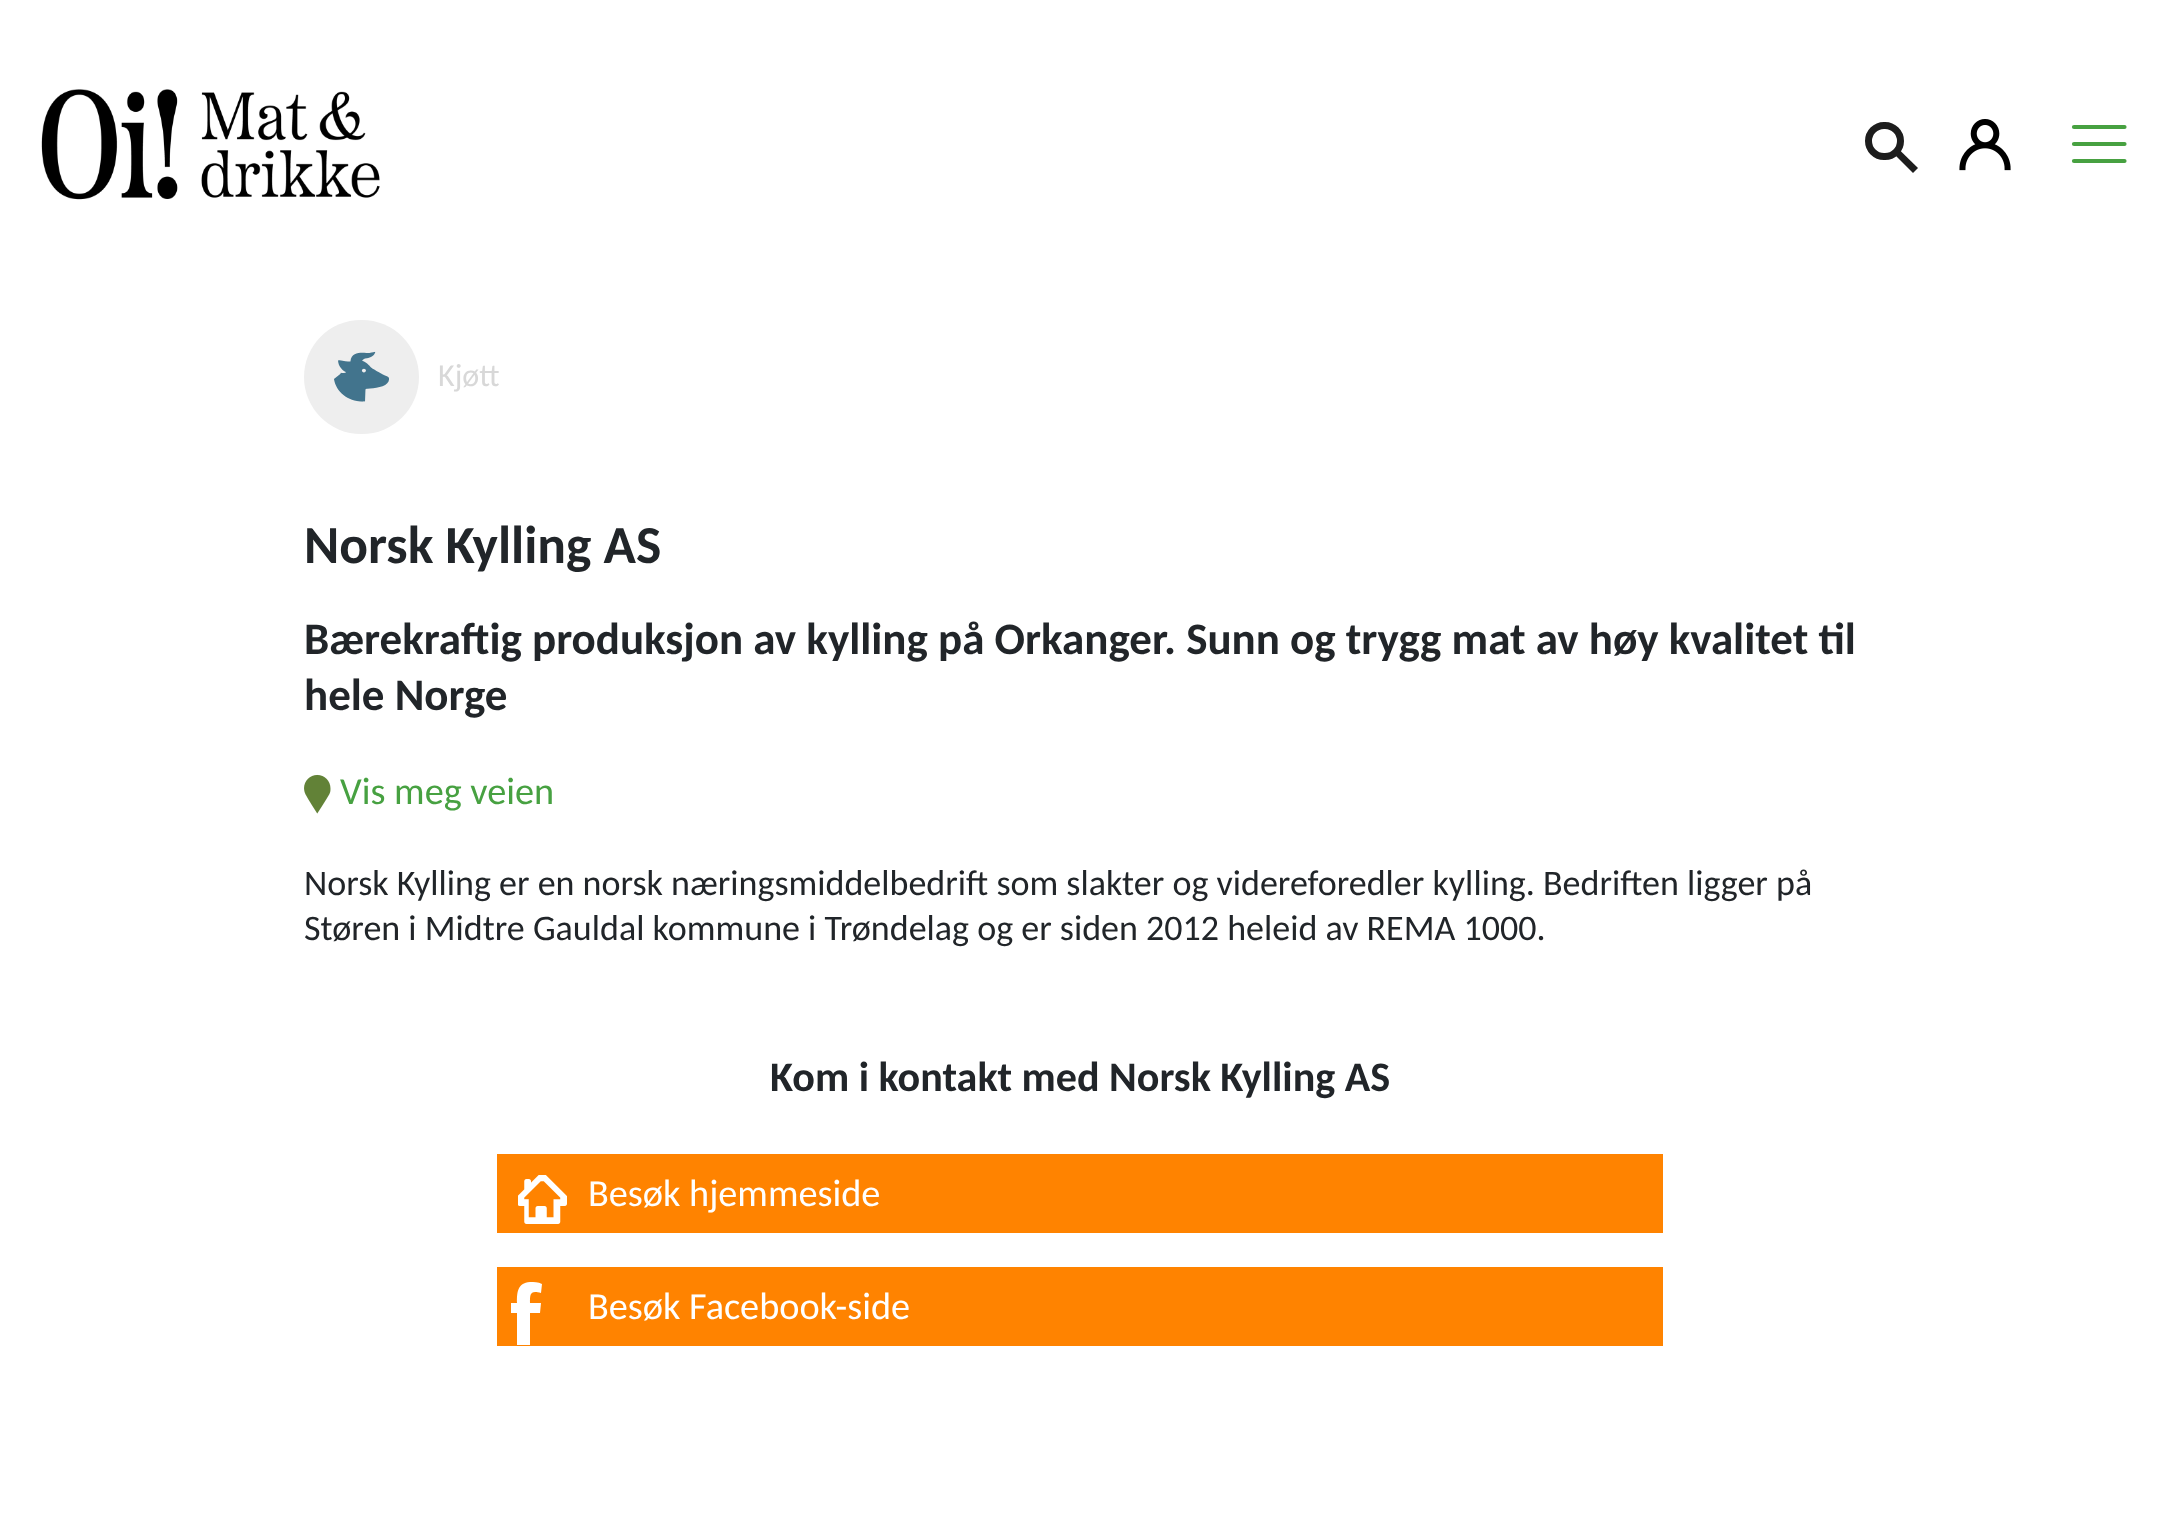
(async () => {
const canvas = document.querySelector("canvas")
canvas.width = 2159
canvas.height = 1522
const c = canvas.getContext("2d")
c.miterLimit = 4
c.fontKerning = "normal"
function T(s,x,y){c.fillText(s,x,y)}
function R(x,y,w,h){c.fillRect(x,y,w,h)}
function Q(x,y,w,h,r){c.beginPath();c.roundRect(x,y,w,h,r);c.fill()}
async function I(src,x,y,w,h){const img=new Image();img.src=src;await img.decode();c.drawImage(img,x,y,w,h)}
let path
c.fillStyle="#fff"
R(0,0,2159,1522)
await I("1.png",41,89,339,111)
c.fillStyle="#1d1d1d"
path = new Path2D("M1876 127l42 41l-5 5l-42-42z")
c.fill(path)
c.fillStyle="#fff"
c.beginPath()
c.roundRect(1868.5,125.5,32,31,15.5)
c.fill()
c.strokeStyle="#1d1d1d"
c.lineWidth=7
c.stroke()
await I("2.png",1959,119,52,52)
path = new Path2D("M2074 127h50.5m-50.5 17h50.5m-50.5 17h50.5")
c.strokeStyle="#47a141"
c.lineWidth=4.2
c.lineCap="round"
c.stroke(path)
c.fillStyle="#eee"
Q(304,320,115,114,57)
await I("3.png",334,351,55,51)
c.font="32px Carlito"
c.fillStyle="#d8d8d8"
T("Kjøtt",438,386)
c.font="bold 53.5px Carlito"
c.fillStyle="#212529"
T("Norsk Kylling AS",304,563)
c.font="bold 45px Carlito"
T("Bærekraftig produksjon av kylling på Orkanger. Sunn og trygg mat av høy kvalitet til",304,654)
T("hele Norge",304,710)
await I("4.png",304,774,27,40)
c.font="38.25px Carlito"
c.fillStyle="#47a141"
T("Vis meg veien",340,804)
c.font="36px Carlito"
c.fillStyle="#212529"
T("Norsk Kylling er en norsk næringsmiddelbedrift som slakter og videreforedler kylling. Bedriften ligger på",304,895)
T("Støren i Midtre Gauldal kommune i Trøndelag og er siden 2012 heleid av REMA 1000.",304,940)
c.font="bold 42.1px Carlito"
T("Kom i kontakt med Norsk Kylling AS",770,1091)
c.fillStyle="#ff8300"
R(497,1154,1166,79)
await I("5.png",518,1175,49,49)
c.font="38.25px Carlito"
c.fillStyle="#fff"
T("Besøk hjemmeside",588,1206)
c.fillStyle="#ff8300"
R(497,1267,1166,79)
c.fillStyle="#fff"
path = new Path2D("M511 1303h6c0-10 0-20 13-21c4 0 8 0 12 2l-1 9c-11-3-11 1-11 10h11l-1 10h-10v32h-13v-32h-6v-10")
c.fill(path,"evenodd")
T("Besøk Facebook-side",588,1319)
})()
